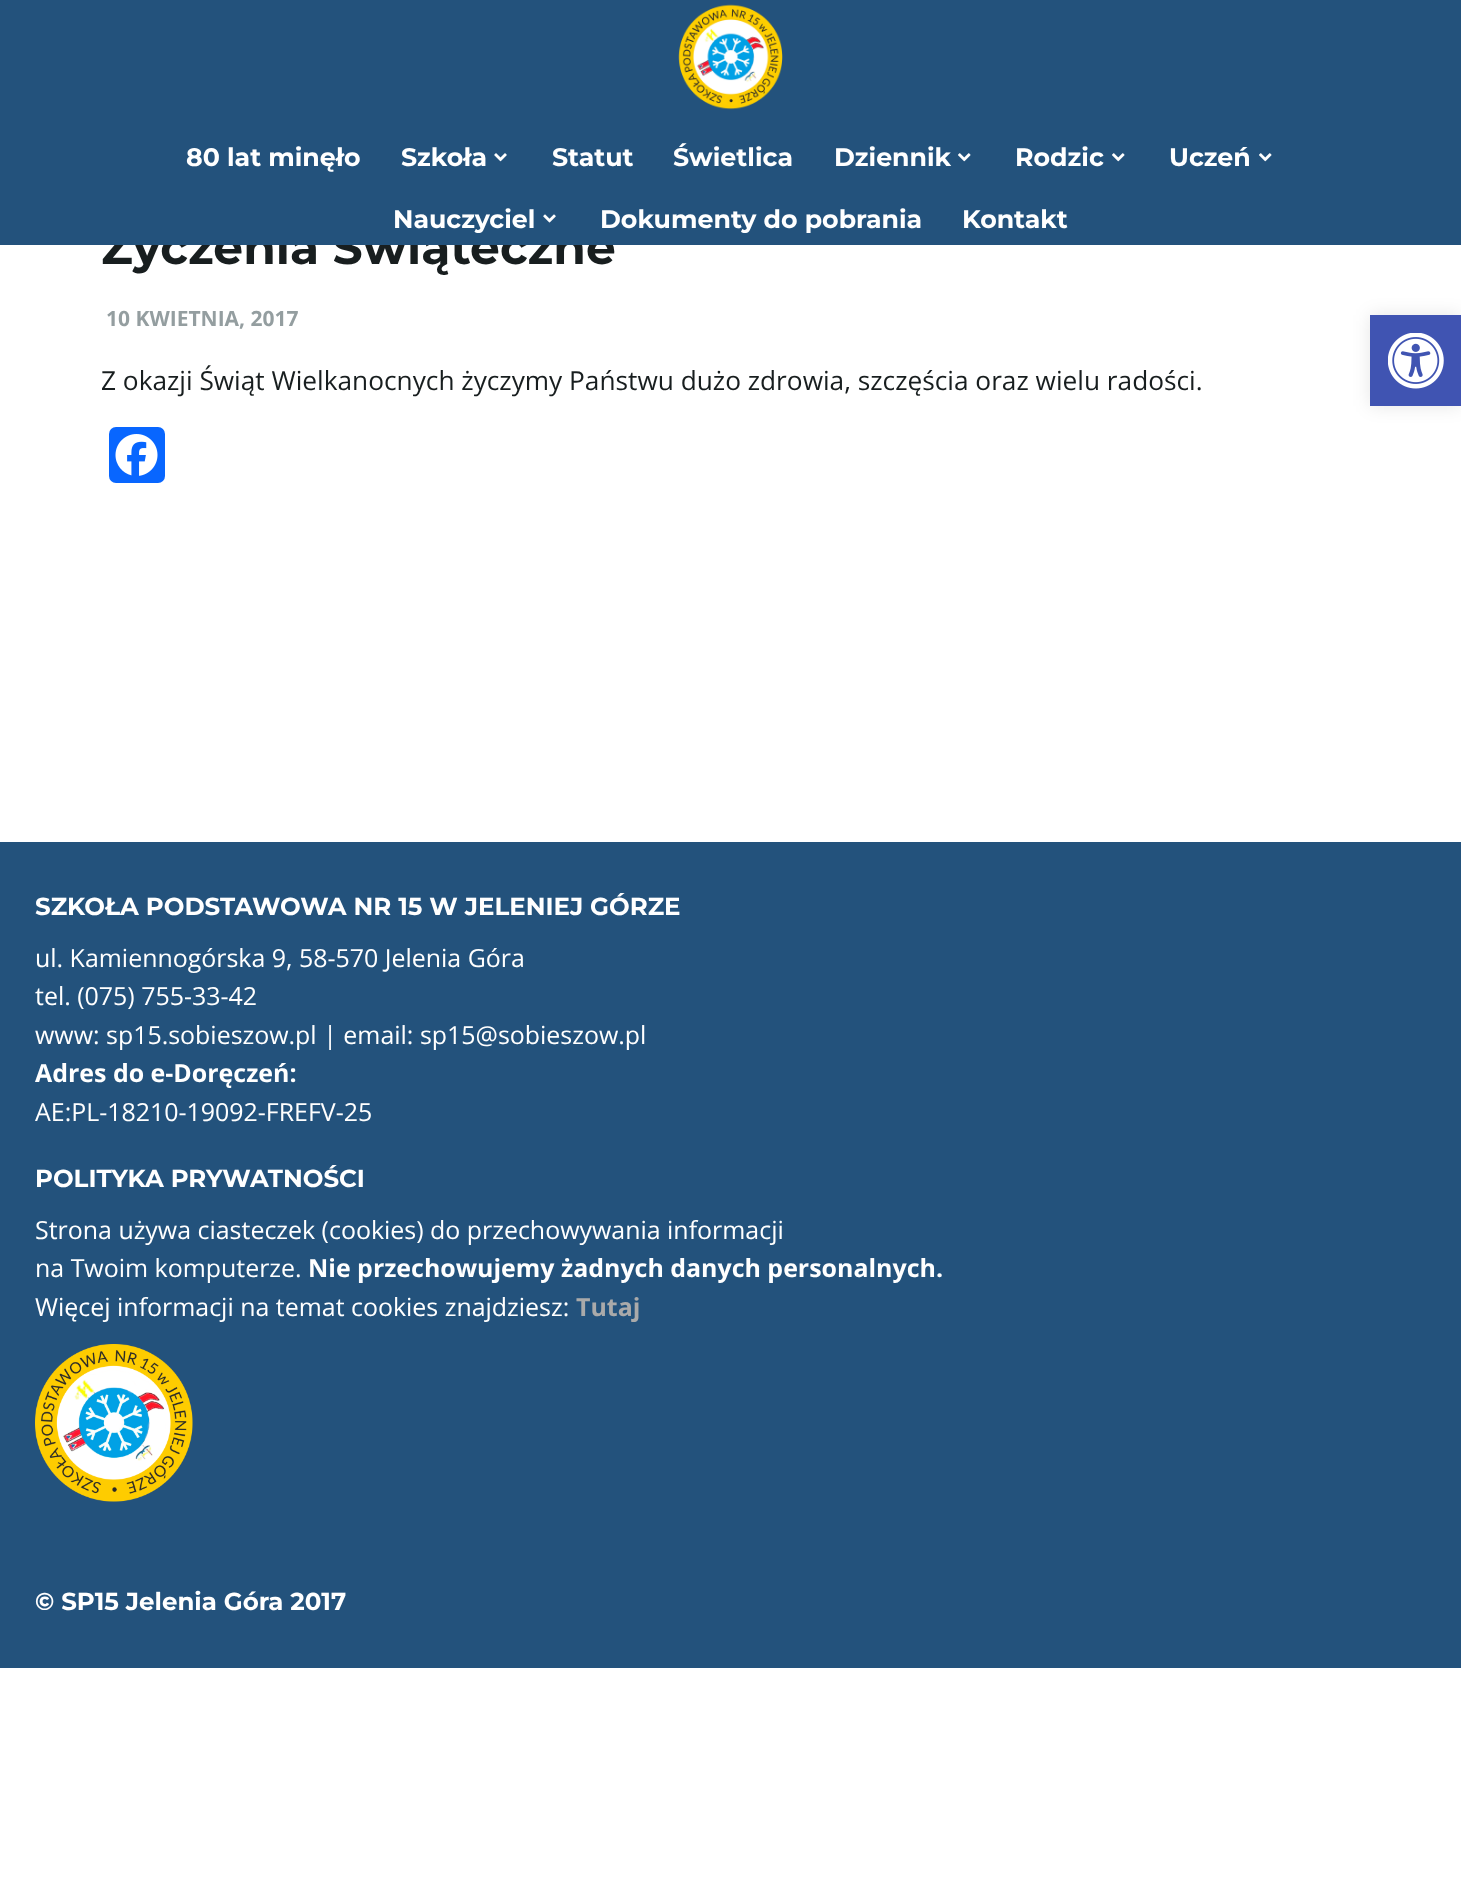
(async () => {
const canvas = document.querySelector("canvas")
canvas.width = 1461
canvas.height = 1884
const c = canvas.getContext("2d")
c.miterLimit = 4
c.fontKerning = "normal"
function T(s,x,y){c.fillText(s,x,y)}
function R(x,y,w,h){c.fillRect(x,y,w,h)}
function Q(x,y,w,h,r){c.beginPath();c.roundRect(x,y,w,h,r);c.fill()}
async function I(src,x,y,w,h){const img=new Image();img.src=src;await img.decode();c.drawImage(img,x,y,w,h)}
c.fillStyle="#fff"
R(0,0,1461,1884)
c.font="100 47.25px Montserrat"
c.fillStyle="#181e1f"
T("Życzenia Świąteczne",101,264)
c.fillStyle="#23527c"
R(0,0,1461,245)
await I("1.png",678,4,105,106)
c.font="100 25.25px Montserrat"
c.fillStyle="#fff"
T("80 lat minęło",186,166)
T("Szkoła",401,166)
await I("2.png",494,153,13,9)
T("Statut",552,166)
T("Świetlica",673,166)
T("Dziennik",834,166)
await I("3.png",958,153,13,9)
T("Rodzic",1015,166)
await I("3.png",1112,153,13,9)
T("Uczeń",1169,166)
await I("3.png",1259,153,13,9)
T("Nauczyciel",393,228)
await I("4.png",543,214,13,9)
T("Dokumenty do pobrania",600,228)
T("Kontakt",962,228)
c.font="bold 21px Open Sans"
c.fillStyle="#949ea0"
T("10 KWIETNIA, 2017",106,326)
c.font="26.25px Open Sans"
c.fillStyle="#181e1f"
T("Z okazji Świąt Wielkanocnych życzymy Państwu dużo zdrowia, szczęścia oraz wielu radości.",101,390)
c.fillStyle="#0866ff"
Q(109,427,56,56,7)
await I("5.png",115,434,43,42)
c.fillStyle="#0000001a"
c.filter="blur(9px)"
c.beginPath()
c.rect(1370,315,91,91)
c.fill()
c.filter="none"
c.fillStyle="#4054b2"
R(1370,315,91,91)
await I("6.png",1388,333,56,56)
c.fillStyle="#23527c"
R(0,842,1461,826)
c.font="100 24.5px Montserrat"
c.fillStyle="#fff"
T("SZKOŁA PODSTAWOWA NR 15 W JELENIEJ GÓRZE",35,915)
c.font="24.95px Open Sans"
T("ul. Kamiennogórska 9, 58-570 Jelenia Góra",35,967)
T("tel. (075) 755-33-42",35,1005)
T("www: sp15.sobieszow.pl | email: sp15@sobieszow.pl",35,1044)
c.font="bold 24.95px Open Sans"
T("Adres do e-Doręczeń:",35,1082)
c.font="24.95px Open Sans"
T("AE:PL-18210-19092-FREFV-25",35,1121)
c.font="100 24.5px Montserrat"
T("POLITYKA PRYWATNOŚCI",35,1187)
c.font="24.95px Open Sans"
T("Strona używa ciasteczek (cookies) do przechowywania informacji",35,1239)
T("na Twoim komputerze.",35,1277)
c.font="bold 24.95px Open Sans"
T("Nie przechowujemy żadnych danych personalnych.",308,1277)
c.font="24.95px Open Sans"
T("Więcej informacji na temat cookies znajdziesz:",35,1316)
c.font="bold 24.95px Open Sans"
c.fillStyle="#aaa"
T("Tutaj",576,1316)
await I("7.png",35,1344,158,158)
c.font="100 24.5px Montserrat"
c.fillStyle="#fff"
T("© SP15 Jelenia Góra 2017",35,1610)
})()
